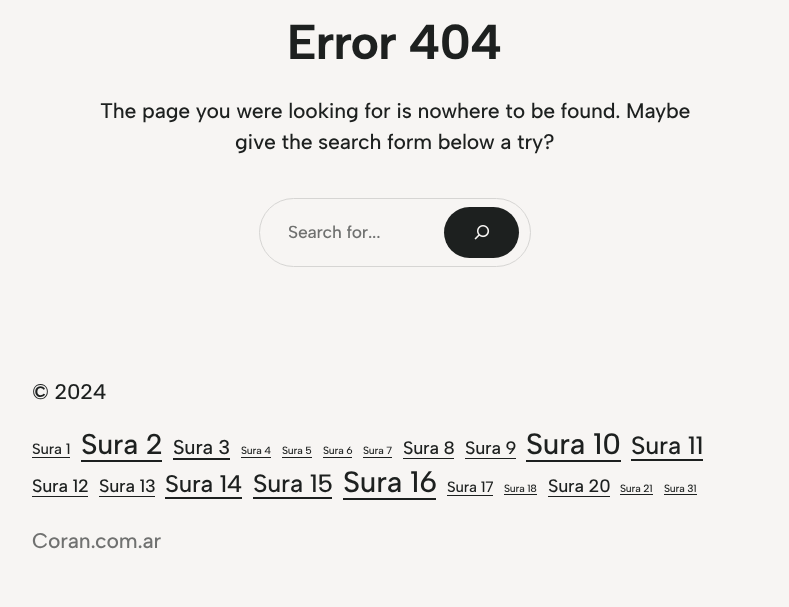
(async () => {
const canvas = document.querySelector("canvas")
canvas.width = 789
canvas.height = 607
const c = canvas.getContext("2d")
c.miterLimit = 4
c.fontKerning = "normal"
function T(s,x,y){c.fillText(s,x,y)}
function R(x,y,w,h){c.fillRect(x,y,w,h)}
function Q(x,y,w,h,r){c.beginPath();c.roundRect(x,y,w,h,r);c.fill()}
async function I(src,x,y,w,h){const img=new Image();img.src=src;await img.decode();c.drawImage(img,x,y,w,h)}
c.fillStyle="#f7f5f3"
R(0,0,789,607)
c.letterSpacing="-1px"
c.font="bold 49px Albert Sans"
c.fillStyle="#1d201f"
T("Error 404",287,59)
c.letterSpacing="-0.2px"
c.font="500 21.2px Albert Sans"
T("The page you were looking for is nowhere to be found. Maybe",100,118)
T("give the search form below a try?",235,149)
c.beginPath()
c.roundRect(259.5,198.5,271,68,34)
c.strokeStyle="#d6d5d3"
c.stroke()
c.font="500 17.5px Albert Sans"
c.fillStyle="#707170"
T("Search for...",288,238)
c.fillStyle="#1d201f"
Q(444,207,75,51,25.5)
await I("1.png",474,225,16,15)
c.font="500 21.2px Albert Sans"
T("© 2024",32,399)
c.font="500 15px Albert Sans"
T("Sura 1",32,454)
R(32,457,38,1)
c.font="500 28.5px Albert Sans"
T("Sura 2",81,454)
R(81,460,81,2)
c.font="500 20px Albert Sans"
T("Sura 3",173,454)
R(173,458,57,2)
c.font="500 10.5px Albert Sans"
T("Sura 4",241,454)
R(241,457,30,1)
T("Sura 5",282,454)
R(282,457,30,1)
T("Sura 6",323,454)
R(323,457,29,1)
T("Sura 7",363,454)
R(363,457,29,1)
c.font="500 18px Albert Sans"
T("Sura 8",403,454)
R(403,458,51,1)
T("Sura 9",465,454)
R(465,458,51,1)
c.font="500 29.5px Albert Sans"
T("Sura 10",526,454)
R(526,460,95,2)
c.font="500 25px Albert Sans"
T("Sura 11",631,454)
R(631,459,72,2)
c.font="500 18px Albert Sans"
T("Sura 12",32,492)
R(32,496,56,1)
T("Sura 13",99,492)
R(99,496,56,1)
c.font="500 24px Albert Sans"
T("Sura 14",165,492)
R(165,497,77,2)
c.font="500 25px Albert Sans"
T("Sura 15",253,492)
R(253,497,79,2)
c.font="500 29.5px Albert Sans"
T("Sura 16",343,492)
R(343,498,93,2)
c.font="500 15px Albert Sans"
T("Sura 17",447,492)
R(447,495,46,1)
c.font="500 10.5px Albert Sans"
T("Sura 18",504,492)
R(504,494,33,1)
c.font="500 18px Albert Sans"
T("Sura 20",548,492)
R(548,496,62,1)
c.font="500 10.5px Albert Sans"
T("Sura 21",620,492)
R(620,494,33,1)
T("Sura 31",664,492)
R(664,494,33,1)
c.font="500 21.2px Albert Sans"
c.fillStyle="#707170"
T("Coran.com.ar",32,548)
})()
